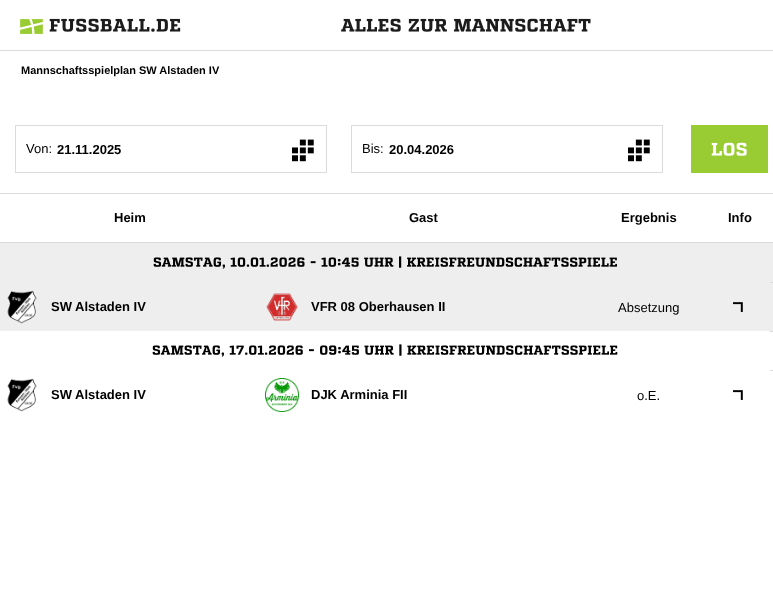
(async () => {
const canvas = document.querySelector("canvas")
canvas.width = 773
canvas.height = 600
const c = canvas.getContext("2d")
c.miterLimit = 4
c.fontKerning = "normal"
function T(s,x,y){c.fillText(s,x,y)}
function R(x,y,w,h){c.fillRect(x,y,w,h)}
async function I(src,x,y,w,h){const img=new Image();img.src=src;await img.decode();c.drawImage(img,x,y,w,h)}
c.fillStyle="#fff"
R(0,0,773,600)
c.fillStyle="#dbdbdb"
R(0,50,773,1)
await I("1.png",20,19,23,15)
await I("2.png",49,18,132,14)
await I("3.png",341,18,250,14)
c.font="bold 11px Liberation Sans"
c.fillStyle="#000"
T("Mannschaftsspielplan SW Alstaden IV",21,74)
c.strokeStyle="#dbdbdb"
c.strokeRect(15.5,125.5,311,47)
c.font="13px Liberation Sans"
T("Von:",26,153)
c.font="bold 13px Liberation Sans"
T("21.11.2025",57,154)
await I("4.png",292,139,22,23)
c.strokeRect(351.5,125.5,311,47)
c.font="13px Liberation Sans"
T("Bis:",362,153)
c.font="bold 13px Liberation Sans"
T("20.04.2026",389,154)
await I("4.png",628,139,22,23)
c.fillStyle="#9c3"
R(691,125,77,48)
await I("5.png",711,142,36,14)
c.fillStyle="#dbdbdb"
R(0,193,773,1)
R(0,242,770,1)
c.fillStyle="#000"
T("Heim",114,222)
T("Gast",409,222)
T("Ergebnis",621,222)
T("Info",728,222)
c.fillStyle="#dbdbdb"
R(770,242,3,1)
c.fillStyle="#eee"
R(0,243,770,40)
await I("6.png",153,256,464,13)
R(770,243,3,39)
c.fillStyle="#dbdbdb"
R(770,282,3,1)
c.fillStyle="#eee"
R(0,283,773,48)
await I("7.png",7,290,30,34)
c.fillStyle="#000"
T("SW Alstaden IV",51,311)
await I("8.png",266,293,32,28)
T("VFR 08 Oberhausen II",311,311)
c.font="13px Liberation Sans"
T("Absetzung",618,312)
await I("9.png",733,302,10,10)
await I("10.png",152,344,466,13)
c.fillStyle="#dbdbdb"
R(770,331,3,1)
R(770,370,3,1)
await I("11.png",7,378,30,34)
c.font="bold 13px Liberation Sans"
c.fillStyle="#000"
T("SW Alstaden IV",51,399)
await I("12.png",265,378,34,34)
T("DJK Arminia FII",311,399)
c.font="13px Liberation Sans"
T("o.E.",637,400)
await I("13.png",733,390,10,10)
})()
